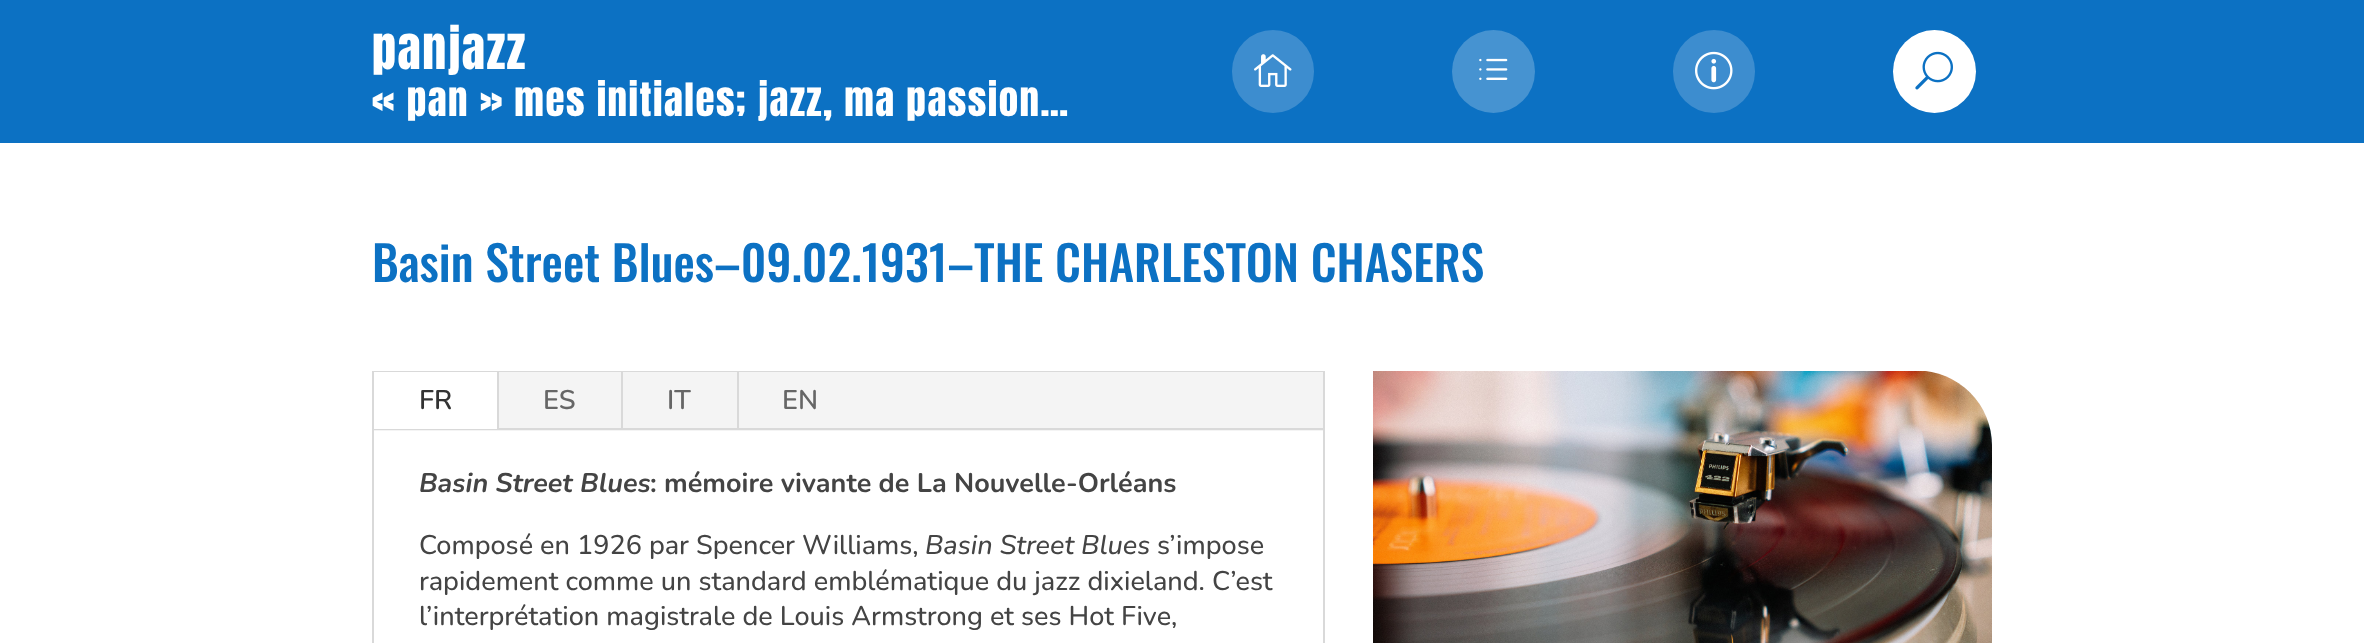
(async () => {
const canvas = document.querySelector("canvas")
canvas.width = 2364
canvas.height = 643
const c = canvas.getContext("2d")
c.miterLimit = 4
c.fontKerning = "normal"
function T(s,x,y){c.fillText(s,x,y)}
function R(x,y,w,h){c.fillRect(x,y,w,h)}
function Q(x,y,w,h,r){c.beginPath();c.roundRect(x,y,w,h,r);c.fill()}
async function I(src,x,y,w,h){const img=new Image();img.src=src;await img.decode();c.drawImage(img,x,y,w,h)}
c.fillStyle="#fff"
R(0,0,2364,643)
c.fillStyle="#0c71c3"
R(0,0,2364,143)
c.letterSpacing="1.5px"
c.font="48px Anton"
c.fillStyle="#fff"
T("panjazz",372,69)
c.font="39px Anton"
T("« pan » mes initiales; jazz, ma passion…",372,116)
c.fillStyle="#3d8dcf"
Q(1232,30,82,83,41)
await I("1.png",1254,54,38,33)
c.fillStyle="#4693d1"
c.beginPath()
c.arc(1493.5,71.5,41.5,0,7)
c.fill()
await I("2.png",1479,58,29,22)
c.fillStyle="#3d8dcf"
Q(1673,30,82,83,41)
await I("3.png",1695,51,38,39)
c.fillStyle="#fff"
c.beginPath()
c.arc(1934.5,71.5,41.5,0,7)
c.fill()
await I("4.png",1915,51,38,39)
c.letterSpacing="0px"
c.font="500 48px Oswald"
c.fillStyle="#0c71c3"
T("Basin Street Blues–09.02.1931–THE CHARLESTON CHASERS",372,282)
c.strokeStyle="#d9d9d9"
c.lineWidth=2
c.strokeRect(373,372,951,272)
c.fillStyle="#f4f4f4"
R(374,372,949,59)
c.fillStyle="#d9d9d9"
R(374,428,949,2)
c.fillStyle="#fff"
R(374,372,123,57)
c.fillStyle="#d9d9d9"
R(497,372,2,57)
c.font="200 27px 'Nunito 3'"
c.fillStyle="#333"
T("FR",419,409)
c.fillStyle="#d9d9d9"
R(621,372,2,57)
c.fillStyle="#666"
T("ES",543,409)
c.fillStyle="#d9d9d9"
R(737,372,2,57)
c.fillStyle="#666"
T("IT",667,409)
T("EN",782,409)
c.font="italic 200 27px Nunito"
c.fillStyle="#444"
T("Basin Street Blues",419,492)
c.font="200 27px Nunito"
T(": mémoire vivante de La Nouvelle-Orléans",650,492)
c.font="200 27px 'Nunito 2'"
T("Composé en 1926 par Spencer Williams,",419,554)
c.font="italic 200 27px 'Nunito 2'"
T("Basin Street Blues",925,554)
c.font="200 27px 'Nunito 2'"
T("s’impose",1157,554)
T("rapidement comme un standard emblématique du jazz dixieland. C’est",419,590)
T("l’interprétation magistrale de Louis Armstrong et ses Hot Five,",419,625)
await I("5.png",1373,371,619,272)
})()
